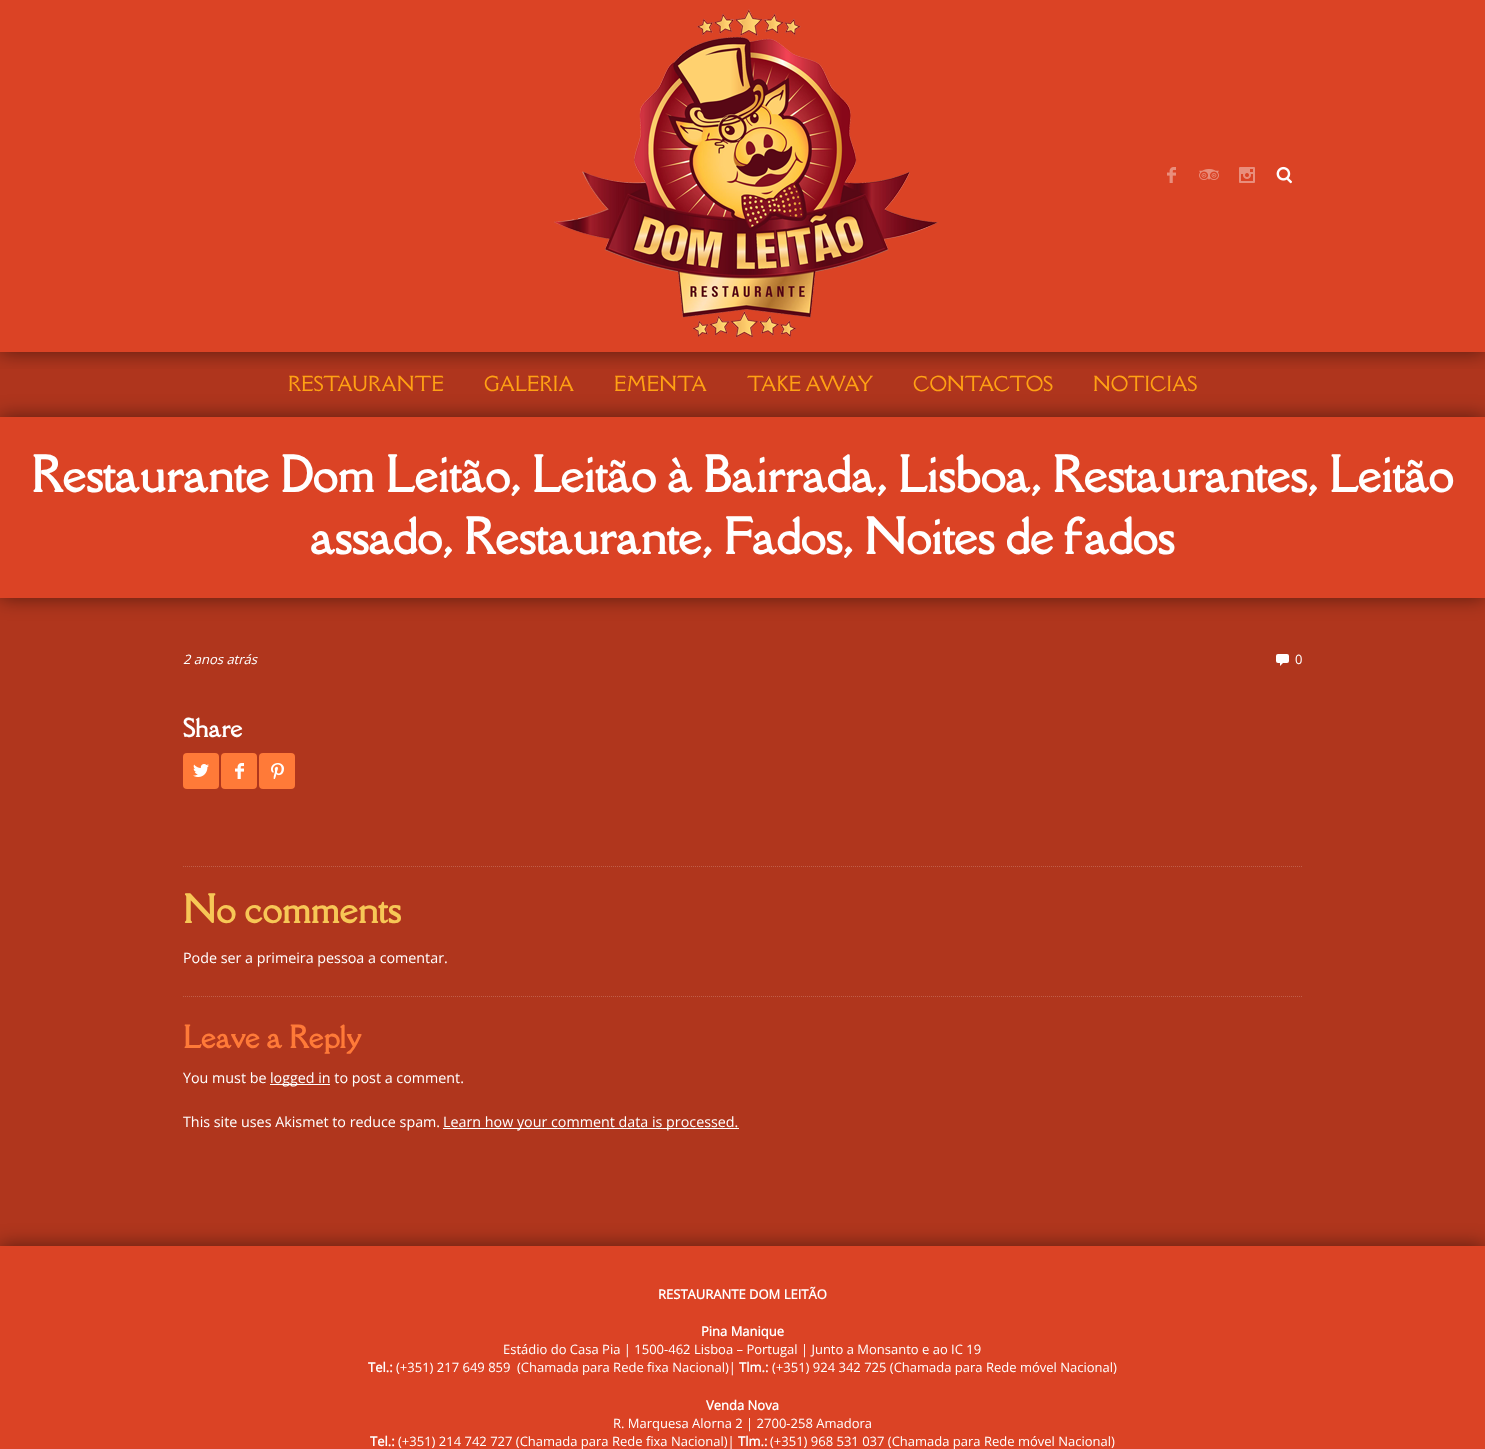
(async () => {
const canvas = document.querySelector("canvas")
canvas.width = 1485
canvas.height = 1449
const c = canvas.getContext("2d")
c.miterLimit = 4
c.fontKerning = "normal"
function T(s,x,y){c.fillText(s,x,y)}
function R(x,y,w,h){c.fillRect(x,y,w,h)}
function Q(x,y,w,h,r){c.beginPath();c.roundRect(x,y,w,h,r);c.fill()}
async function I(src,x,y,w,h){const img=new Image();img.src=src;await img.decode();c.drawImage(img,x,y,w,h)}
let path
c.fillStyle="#db4325"
R(0,0,1485,1449)
c.save()
c.beginPath()
c.rect(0,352,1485,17)
c.clip()
c.fillStyle="#00000080"
c.filter="blur(10px)"
c.beginPath()
c.rect(0,0,1485,352)
c.fill()
c.filter="none"
c.restore()
await I("1.png",554,9,385,329)
await I("2.png",1167,167,9,16)
await I("3.png",1199,169,20,11)
await I("4.png",1239,167,16,16)
await I("5.png",1276,166,16,18)
c.fillStyle="#b0361d"
R(0,598,1485,648)
c.save()
path = new Path2D("M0 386h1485v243h-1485zm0 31h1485v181h-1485z")
c.clip(path,"evenodd")
c.fillStyle="#00000080"
c.filter="blur(10px)"
c.beginPath()
c.rect(0,417,1485,181)
c.fill()
c.filter="none"
c.restore()
c.fillStyle="#00000033"
R(0,352,1485,65)
c.font="19px Della Respira"
c.fillStyle="#ffa114"
T("RESTAURANTE",288,391)
T("GALERIA",484,391)
T("EMENTA",614,391)
T("TAKE AWAY",747,391)
T("CONTACTOS",913,391)
T("NOTICIAS",1093,391)
c.font="bold 45.5px Della Respira"
c.fillStyle="#fff"
T("Restaurante Dom Leitão, Leitão à Bairrada, Lisboa, Restaurantes, Leitão",31,492)
T("assado, Restaurante, Fados, Noites de fados",310,554)
c.font="italic 13px Open Sans"
T("2 anos atrás",183,664)
Q(1276,654,13,9,2)
path = new Path2D("M1280 666v-3h3z")
c.fill(path)
c.font="13px Open Sans"
T("0",1295,664)
c.font="bold 23.5px Della Respira"
T("Share",183,737)
c.fillStyle="#ff7a38"
Q(183,753,36,36,4)
await I("6.png",193,764,16,13)
Q(221,753,36,36,4)
await I("7.png",235,763,9,16)
Q(259,753,36,36,4)
await I("8.png",271,763,13,16)
path = new Path2D("M183 866.5h1120")
c.strokeStyle="#c05e4a"
c.setLineDash([1,1])
c.stroke(path)
c.font="bold 35.75px Della Respira"
c.fillStyle="#f7c756"
T("No comments",183,923)
c.font="14.3px Open Sans"
c.fillStyle="#fff"
T("Pode ser a primeira pessoa a comentar.",183,963)
path = new Path2D("M183 996.5h1120")
c.stroke(path)
c.font="bold 28.5px Della Respira"
c.fillStyle="#ff7a38"
T("Leave a Reply",183,1048)
c.font="14.3px Open Sans"
c.fillStyle="#fff"
T("You must be",183,1083)
R(270,1084,60,1)
T("logged in to post a comment.",270,1083)
T("This site uses Akismet to reduce spam.",183,1127)
R(443,1128,296,1)
T("Learn how your comment data is processed.",443,1127)
c.fillStyle="#00000080"
c.filter="blur(10px)"
c.beginPath()
c.rect(0,1246,1485,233)
c.fill()
c.filter="none"
c.fillStyle="#db4325"
R(0,1246,1485,203)
c.font="bold 13px Open Sans"
c.fillStyle="#fff"
T("RESTAURANTE DOM LEITÃO",658,1299)
T("Pina Manique",701,1336)
c.font="13px Open Sans"
T("Estádio do Casa Pia | 1500-462 Lisboa – Portugal | Junto a Monsanto e ao IC 19",503,1354)
c.font="bold 13px Open Sans"
T("Tel.:",368,1372)
c.font="13px Open Sans"
T("(+351) 217 649 859",396,1372)
T("(Chamada para Rede fixa Nacional)|",517,1372)
c.font="bold 13px Open Sans"
T("Tlm.:",739,1372)
c.font="13px Open Sans"
T("(+351) 924 342 725 (Chamada para Rede móvel Nacional)",772,1372)
c.font="bold 13px Open Sans"
T("Venda Nova",706,1410)
c.font="13px Open Sans"
T("R. Marquesa Alorna 2 | 2700-258 Amadora",613,1428)
c.font="bold 13px Open Sans"
T("Tel.:",370,1446)
c.font="13px Open Sans"
T("(+351) 214 742 727 (Chamada para Rede fixa Nacional)|",398,1446)
c.font="bold 13px Open Sans"
T("Tlm.:",738,1446)
c.font="13px Open Sans"
T("(+351) 968 531 037 (Chamada para Rede móvel Nacional)",770,1446)
})()
